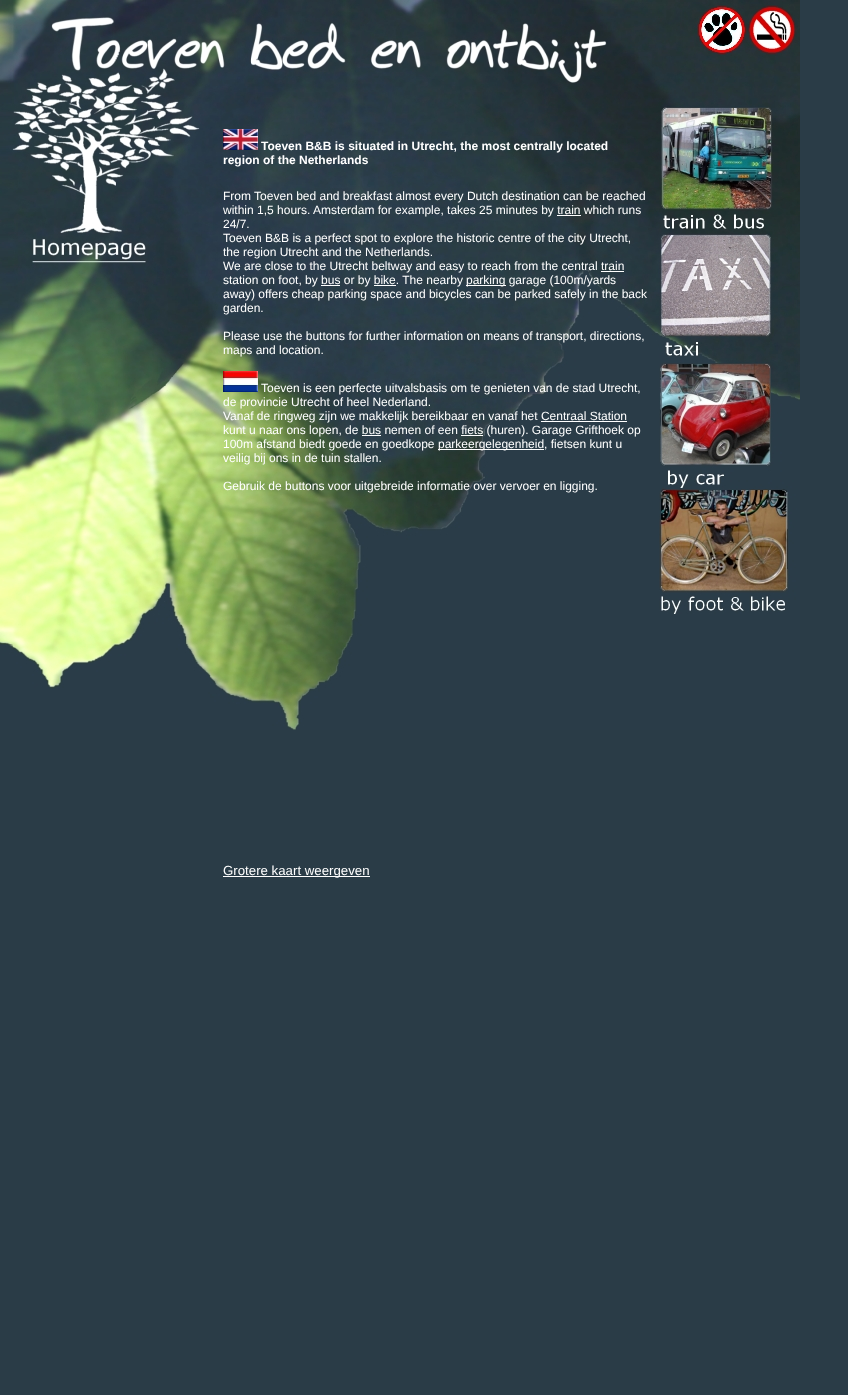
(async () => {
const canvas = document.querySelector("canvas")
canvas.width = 848
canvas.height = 1395
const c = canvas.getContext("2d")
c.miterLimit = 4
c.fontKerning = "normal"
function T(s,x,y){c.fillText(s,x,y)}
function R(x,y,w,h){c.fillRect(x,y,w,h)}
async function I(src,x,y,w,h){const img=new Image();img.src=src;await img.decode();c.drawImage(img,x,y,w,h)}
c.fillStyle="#2a3c47"
R(0,0,848,1395)
await I("1.png",0,0,800,730)
await I("2.png",223,129,35,21)
c.font="bold 12px Liberation Sans"
c.fillStyle="#fff"
T("Toeven B&B is situated in Utrecht, the most centrally located",261,150)
T("region of the Netherlands",223,164)
c.font="12px Liberation Sans"
T("From Toeven bed and breakfast almost every Dutch destination can be reached",223,200)
T("within 1,5 hours. Amsterdam for example, takes 25 minutes by train which runs",223,214)
R(557,215,24,1)
T("24/7.",223,228)
T("Toeven B&B is a perfect spot to explore the historic centre of the city Utrecht,",223,242)
T("the region Utrecht and the Netherlands.",223,256)
T("We are close to the Utrecht beltway and easy to reach from the central train",223,270)
R(601,271,23,1)
T("station on foot, by bus or by bike. The nearby",223,284)
R(321,285,19,1)
R(374,285,22,1)
R(466,285,40,1)
T("parking garage (100m/yards",466,284)
T("away) offers cheap parking space and bicycles can be parked safely in the back",223,298)
T("garden.",223,312)
T("Please use the buttons for further information on means of transport, directions,",223,340)
T("maps and location.",223,354)
await I("3.png",223,371,35,21)
T("Toeven is een perfecte uitvalsbasis om te genieten van de stad Utrecht,",261,392)
T("de provincie Utrecht of heel Nederland.",223,406)
T("Vanaf de ringweg zijn we makkelijk bereikbaar en vanaf het Centraal Station",223,420)
R(541,421,86,1)
T("kunt u naar ons lopen, de bus nemen of een fiets (huren). Garage Grifthoek op",223,434)
R(362,435,19,1)
R(461,435,22,1)
T("100m afstand biedt goede en goedkope",223,448)
R(438,449,106,1)
T("parkeergelegenheid, fietsen kunt u",438,448)
T("veilig bij ons in de tuin stallen.",223,462)
T("Gebruik de buttons voor uitgebreide informatie over vervoer en ligging.",223,490)
R(223,876,147,1)
c.font="13.25px Liberation Sans"
T("Grotere kaart weergeven",223,875)
await I("4.png",659,4,138,610)
})()
